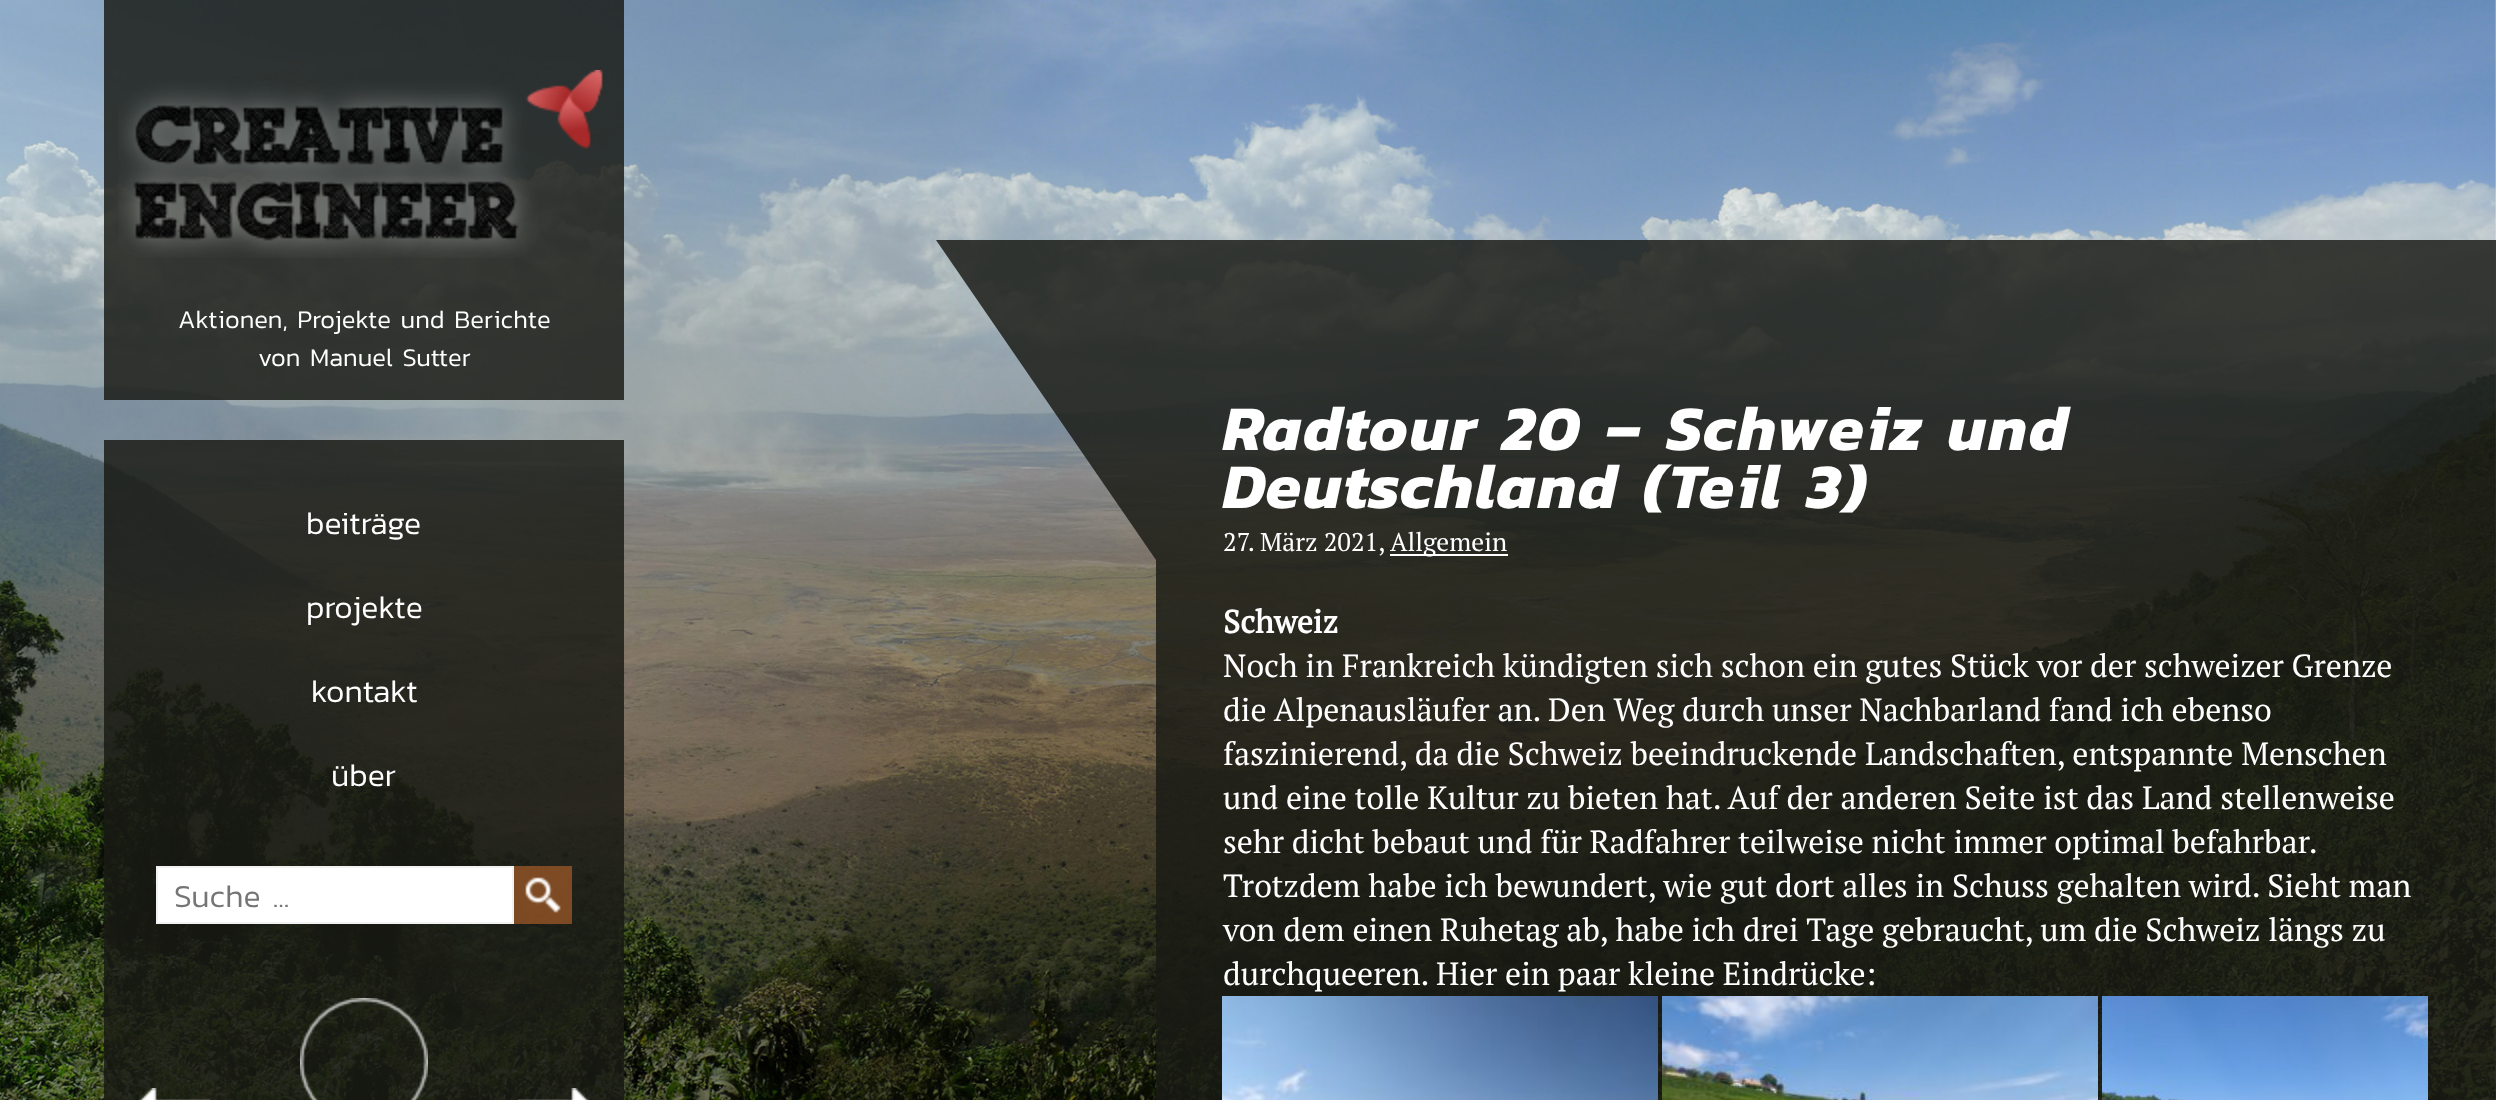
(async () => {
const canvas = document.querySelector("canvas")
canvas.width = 2496
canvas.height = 1100
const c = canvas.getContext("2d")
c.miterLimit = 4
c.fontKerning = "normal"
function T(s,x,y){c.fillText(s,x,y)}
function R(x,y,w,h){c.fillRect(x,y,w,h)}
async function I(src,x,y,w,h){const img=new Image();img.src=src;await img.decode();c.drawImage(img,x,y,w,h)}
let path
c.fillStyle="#fff"
R(0,0,2496,1100)
await I("1.png",0,0,2496,1100)
c.fillStyle="#191b15d4"
R(104,0,520,400)
await I("2.png",118,70,485,188)
c.font="300 25.6px Kanit"
c.fillStyle="#fff"
T("Aktionen, Projekte und Berichte",178,328)
T("von Manuel Sutter",258,366)
c.fillStyle="#191b15d4"
R(104,440,520,660)
c.font="300 32px Kanit"
c.fillStyle="#fff"
T("beiträge",306,534)
T("projekte",306,618)
T("kontakt",311,702)
T("über",331,786)
c.beginPath()
c.rect(157,867,356,56)
c.fill()
c.strokeStyle="#f2f2f2"
c.lineWidth=2
c.stroke()
c.fillStyle="#757575"
T("Suche ...",174,907)
c.fillStyle="#905326d4"
R(514,866,58,58)
await I("3.png",525,877,36,36)
await I("4.png",139,1088,71,12)
await I("5.png",300,998,128,102)
await I("6.png",518,1088,71,12)
c.fillStyle="#191b15d4"
path = new Path2D("M936 240h1560v320h-1340z")
c.fill(path)
R(1156,560,1340,540)
c.letterSpacing="2px"
c.font="italic bold 64px Kanit"
c.fillStyle="#fff"
T("Radtour 20 – Schweiz und",1223,450)
T("Deutschland (Teil 3)",1223,508)
c.letterSpacing="0px"
c.font="25.6px PT Serif"
T("27. März 2021,",1223,551)
R(1390,554,118,2)
T("Allgemein",1390,551)
c.font="bold 32px PT Serif"
T("Schweiz",1223,633)
c.font="32px PT Serif"
T("Noch in Frankreich kündigten sich schon ein gutes Stück vor der schweizer Grenze",1223,677)
T("die Alpenausläufer an. Den Weg durch unser Nachbarland fand ich ebenso",1223,721)
T("faszinierend, da die Schweiz beeindruckende Landschaften, entspannte Menschen",1223,765)
T("und eine tolle Kultur zu bieten hat. Auf der anderen Seite ist das Land stellenweise",1223,809)
c.wordSpacing="-0.1px"
T("sehr dicht bebaut und für Radfahrer teilweise nicht immer optimal befahrbar.",1223,853)
c.wordSpacing="0px"
T("Trotzdem habe ich bewundert, wie gut dort alles in Schuss gehalten wird. Sieht man",1223,897)
T("von dem einen Ruhetag ab, habe ich drei Tage gebraucht, um die Schweiz längs zu",1223,941)
T("durchqueeren. Hier ein paar kleine Eindrücke:",1223,985)
await I("7.png",1222,996,436,104)
await I("8.png",1662,996,436,104)
await I("9.png",2102,996,326,104)
})()
